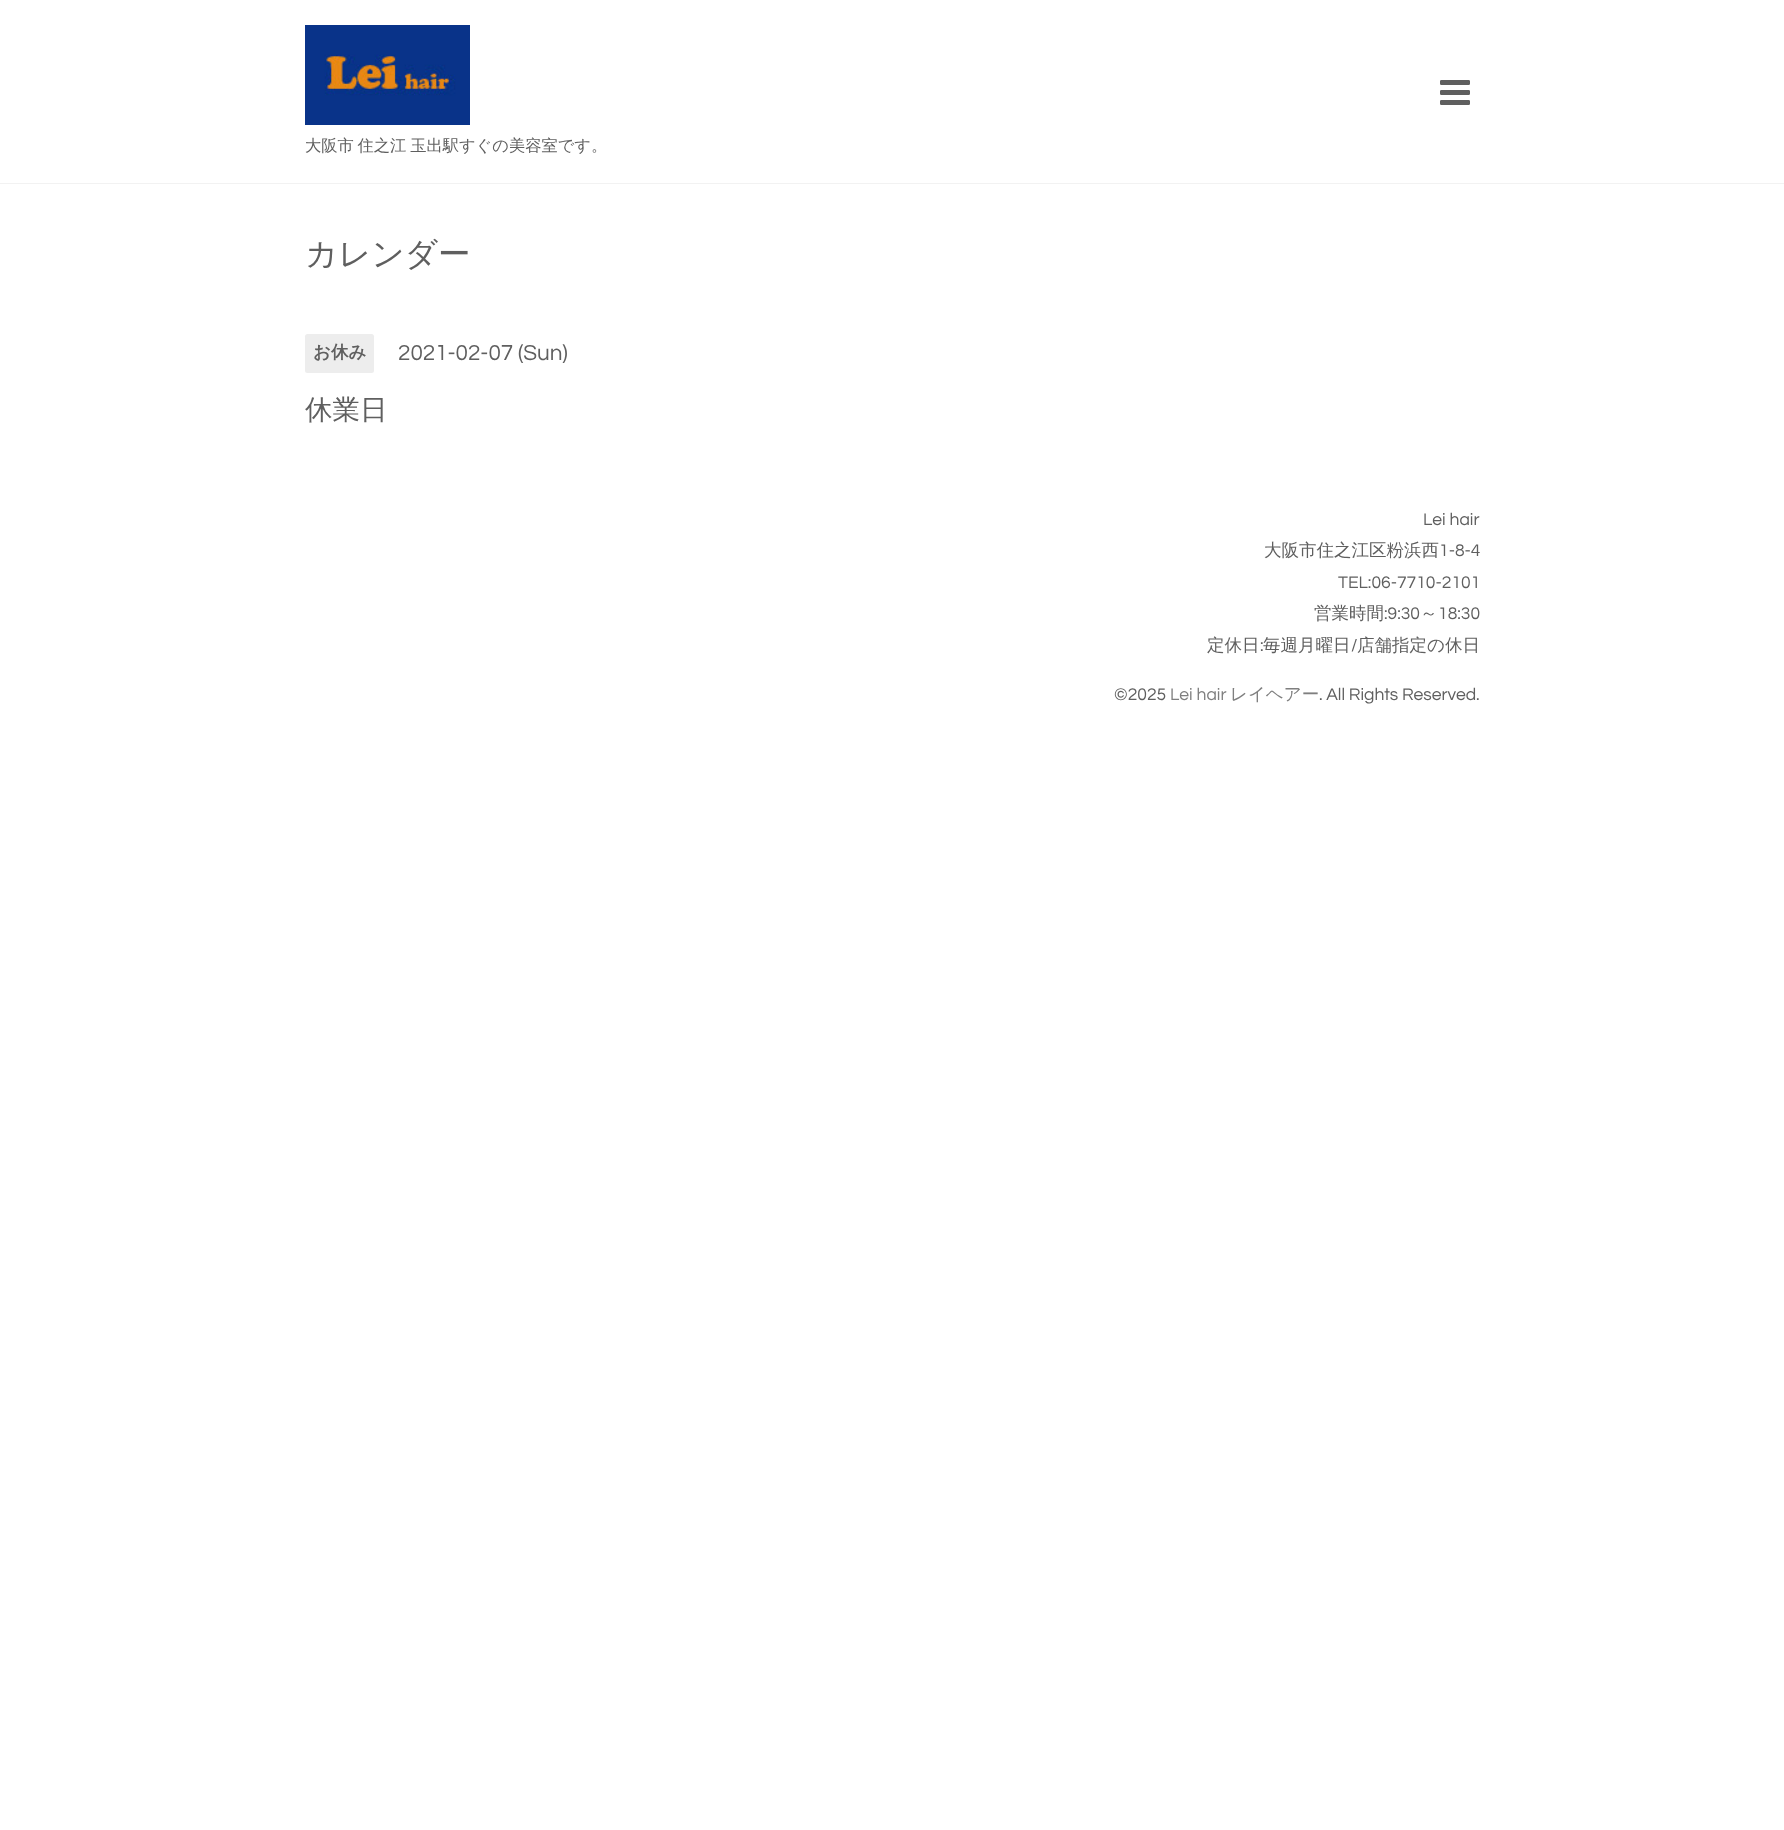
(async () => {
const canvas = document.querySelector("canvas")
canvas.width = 1784
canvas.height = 1830
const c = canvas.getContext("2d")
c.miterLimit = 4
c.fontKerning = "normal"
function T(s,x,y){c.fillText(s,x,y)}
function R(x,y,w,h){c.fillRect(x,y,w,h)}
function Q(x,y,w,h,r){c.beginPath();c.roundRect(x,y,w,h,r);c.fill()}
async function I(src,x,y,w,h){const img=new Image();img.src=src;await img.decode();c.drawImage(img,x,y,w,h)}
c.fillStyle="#fff"
R(0,0,1784,1830)
c.fillStyle="#f2f2f2"
R(0,183,1784,1)
await I("1.png",1440,80,30,25)
await I("2.png",305,25,165,100)
c.wordSpacing="-1px"
c.font="500 16.25px WenQuanYi Zen Hei"
c.fillStyle="#5f5f5f"
T("大阪市 住之江 玉出駅すぐの美容室です。",305,151)
c.wordSpacing="0px"
c.font="500 32.5px WenQuanYi Zen Hei"
T("カレンダー",305,265)
c.fillStyle="#ededed"
Q(305,334,69,39,2.5)
c.font="bold 17.5px WenQuanYi Zen Hei"
c.fillStyle="#5f5f5f"
T("お休み",313,358)
c.font="22.5px Questrial"
T("2021-02-07 (Sun)",398,360)
c.font="500 27.5px WenQuanYi Zen Hei"
T("休業日",305,419)
c.font="17.5px Questrial"
T("Lei hair",1423,525)
c.font="500 17.5px WenQuanYi Zen Hei"
T("大阪市住之江区粉浜西",1264,556)
c.font="17.5px Questrial"
T("1-8-4",1439,556)
T("TEL:06-7710-2101",1338,588)
c.font="500 17.5px WenQuanYi Zen Hei"
T("営業時間",1314,619)
c.font="17.5px Questrial"
T(":9:30",1384,619)
c.font="500 17.5px WenQuanYi Zen Hei"
T("～",1420,619)
c.font="17.5px Questrial"
T("18:30",1438,619)
c.font="500 17.5px WenQuanYi Zen Hei"
T("定休日",1207,651)
c.font="17.5px Questrial"
T(":",1260,651)
c.font="500 17.5px WenQuanYi Zen Hei"
T("毎週月曜日",1263,651)
c.font="17.5px Questrial"
T("/",1351,651)
c.font="500 17.5px WenQuanYi Zen Hei"
T("店舗指定の休日",1357,651)
c.font="17.5px Questrial"
T("©2025",1114,700)
c.fillStyle="#7f7f7f"
T("Lei hair",1170,700)
c.font="500 17.5px WenQuanYi Zen Hei"
T("レイヘアー",1230,700)
c.font="17.5px Questrial"
c.fillStyle="#5f5f5f"
T(". All Rights Reserved.",1319,700)
})()
